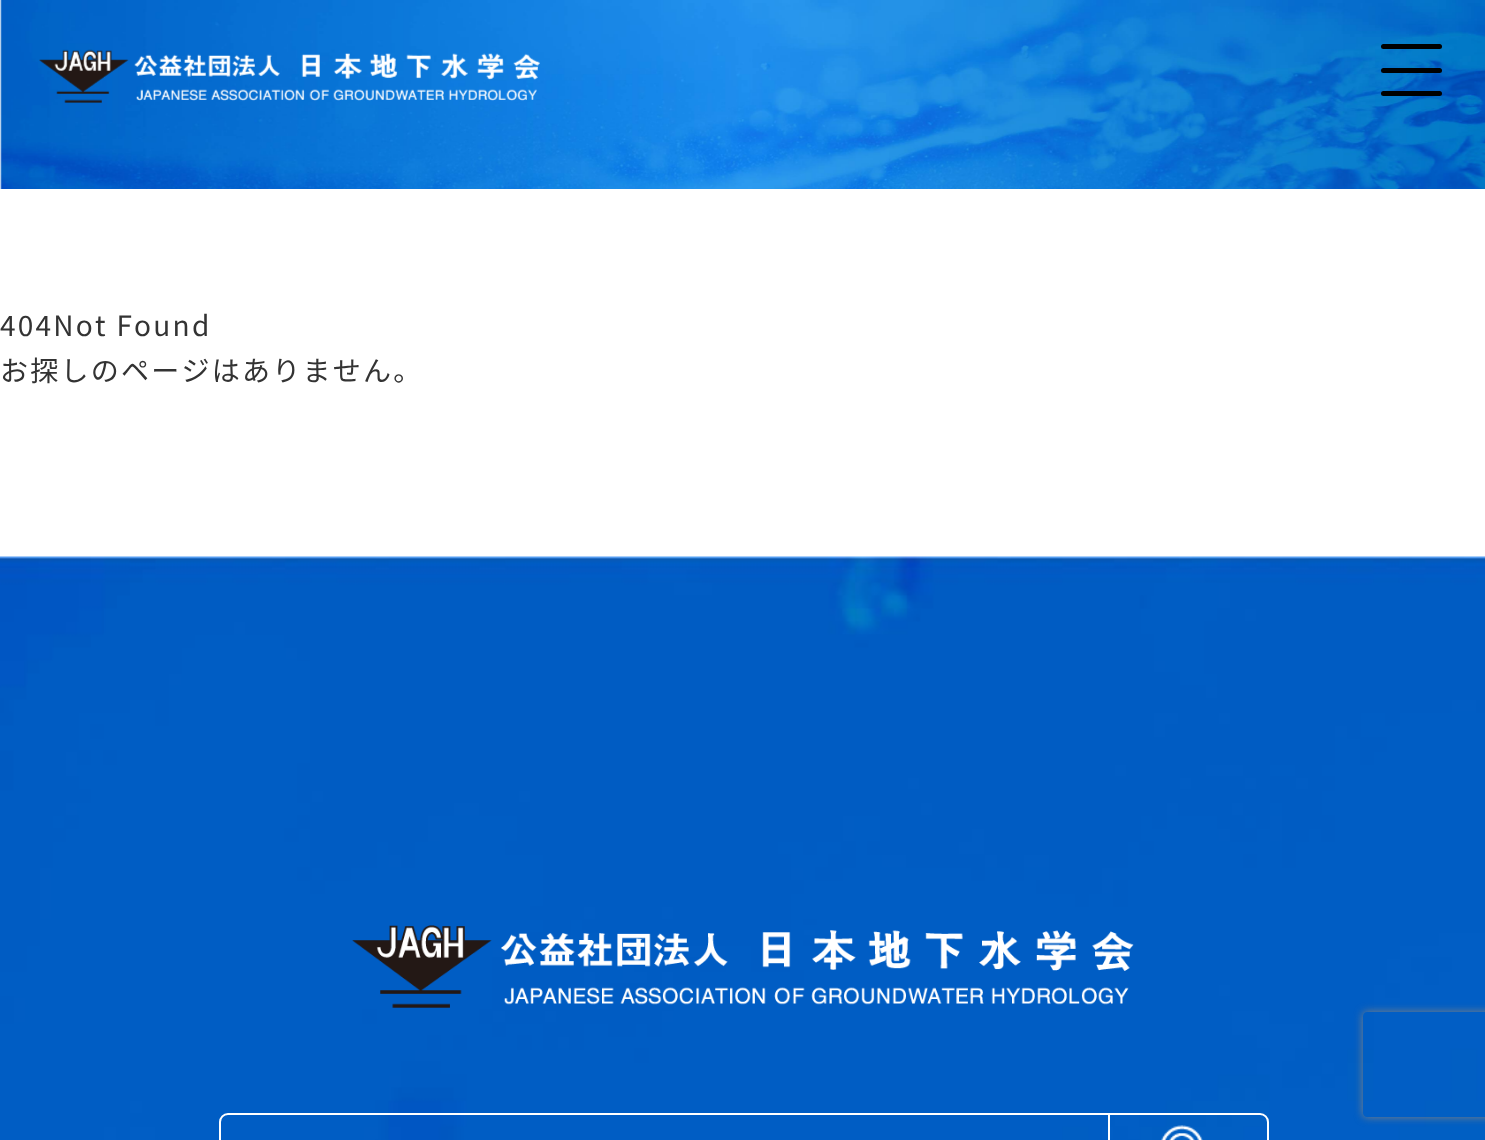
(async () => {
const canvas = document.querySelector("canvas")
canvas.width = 1485
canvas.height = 1140
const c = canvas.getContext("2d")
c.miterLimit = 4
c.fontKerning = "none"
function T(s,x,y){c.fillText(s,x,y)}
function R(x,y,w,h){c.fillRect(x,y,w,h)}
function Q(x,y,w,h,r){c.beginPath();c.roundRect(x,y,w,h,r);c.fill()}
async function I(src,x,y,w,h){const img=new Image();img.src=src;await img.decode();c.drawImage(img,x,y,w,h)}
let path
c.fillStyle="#fff"
R(0,0,1485,1140)
await I("1.png",0,0,1485,189)
await I("2.png",39,49,501,54)
c.fillStyle="#000"
Q(1381,44,61,5,2.5)
Q(1381,68,61,5,2.5)
Q(1381,91,61,5,2.5)
c.letterSpacing="2.25px"
c.font="28px Noto Sans JP"
c.fillStyle="#333"
T("404Not Found",0,336)
T("お探しのページはありません。",0,381)
await I("3.png",0,556,1485,584)
await I("4.png",352,925,782,83)
c.beginPath()
c.roundRect(220,1114,1048,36,8)
c.strokeStyle="#fff"
c.lineWidth=2
c.stroke()
c.fillStyle="#fff"
R(1108,1115,2,25)
await I("5.png",1161,1125,42,15)
c.save()
path = new Path2D("M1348 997h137v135h-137zm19 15h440c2 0 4 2 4 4v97c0 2-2 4-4 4h-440c-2 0-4-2-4-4v-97c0-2 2-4 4-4z")
c.clip(path,"evenodd")
c.fillStyle="#808080"
c.filter="blur(4.5px)"
c.beginPath()
c.roundRect(1363,1012,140,105,4)
c.fill()
c.filter="none"
c.restore()
})()
